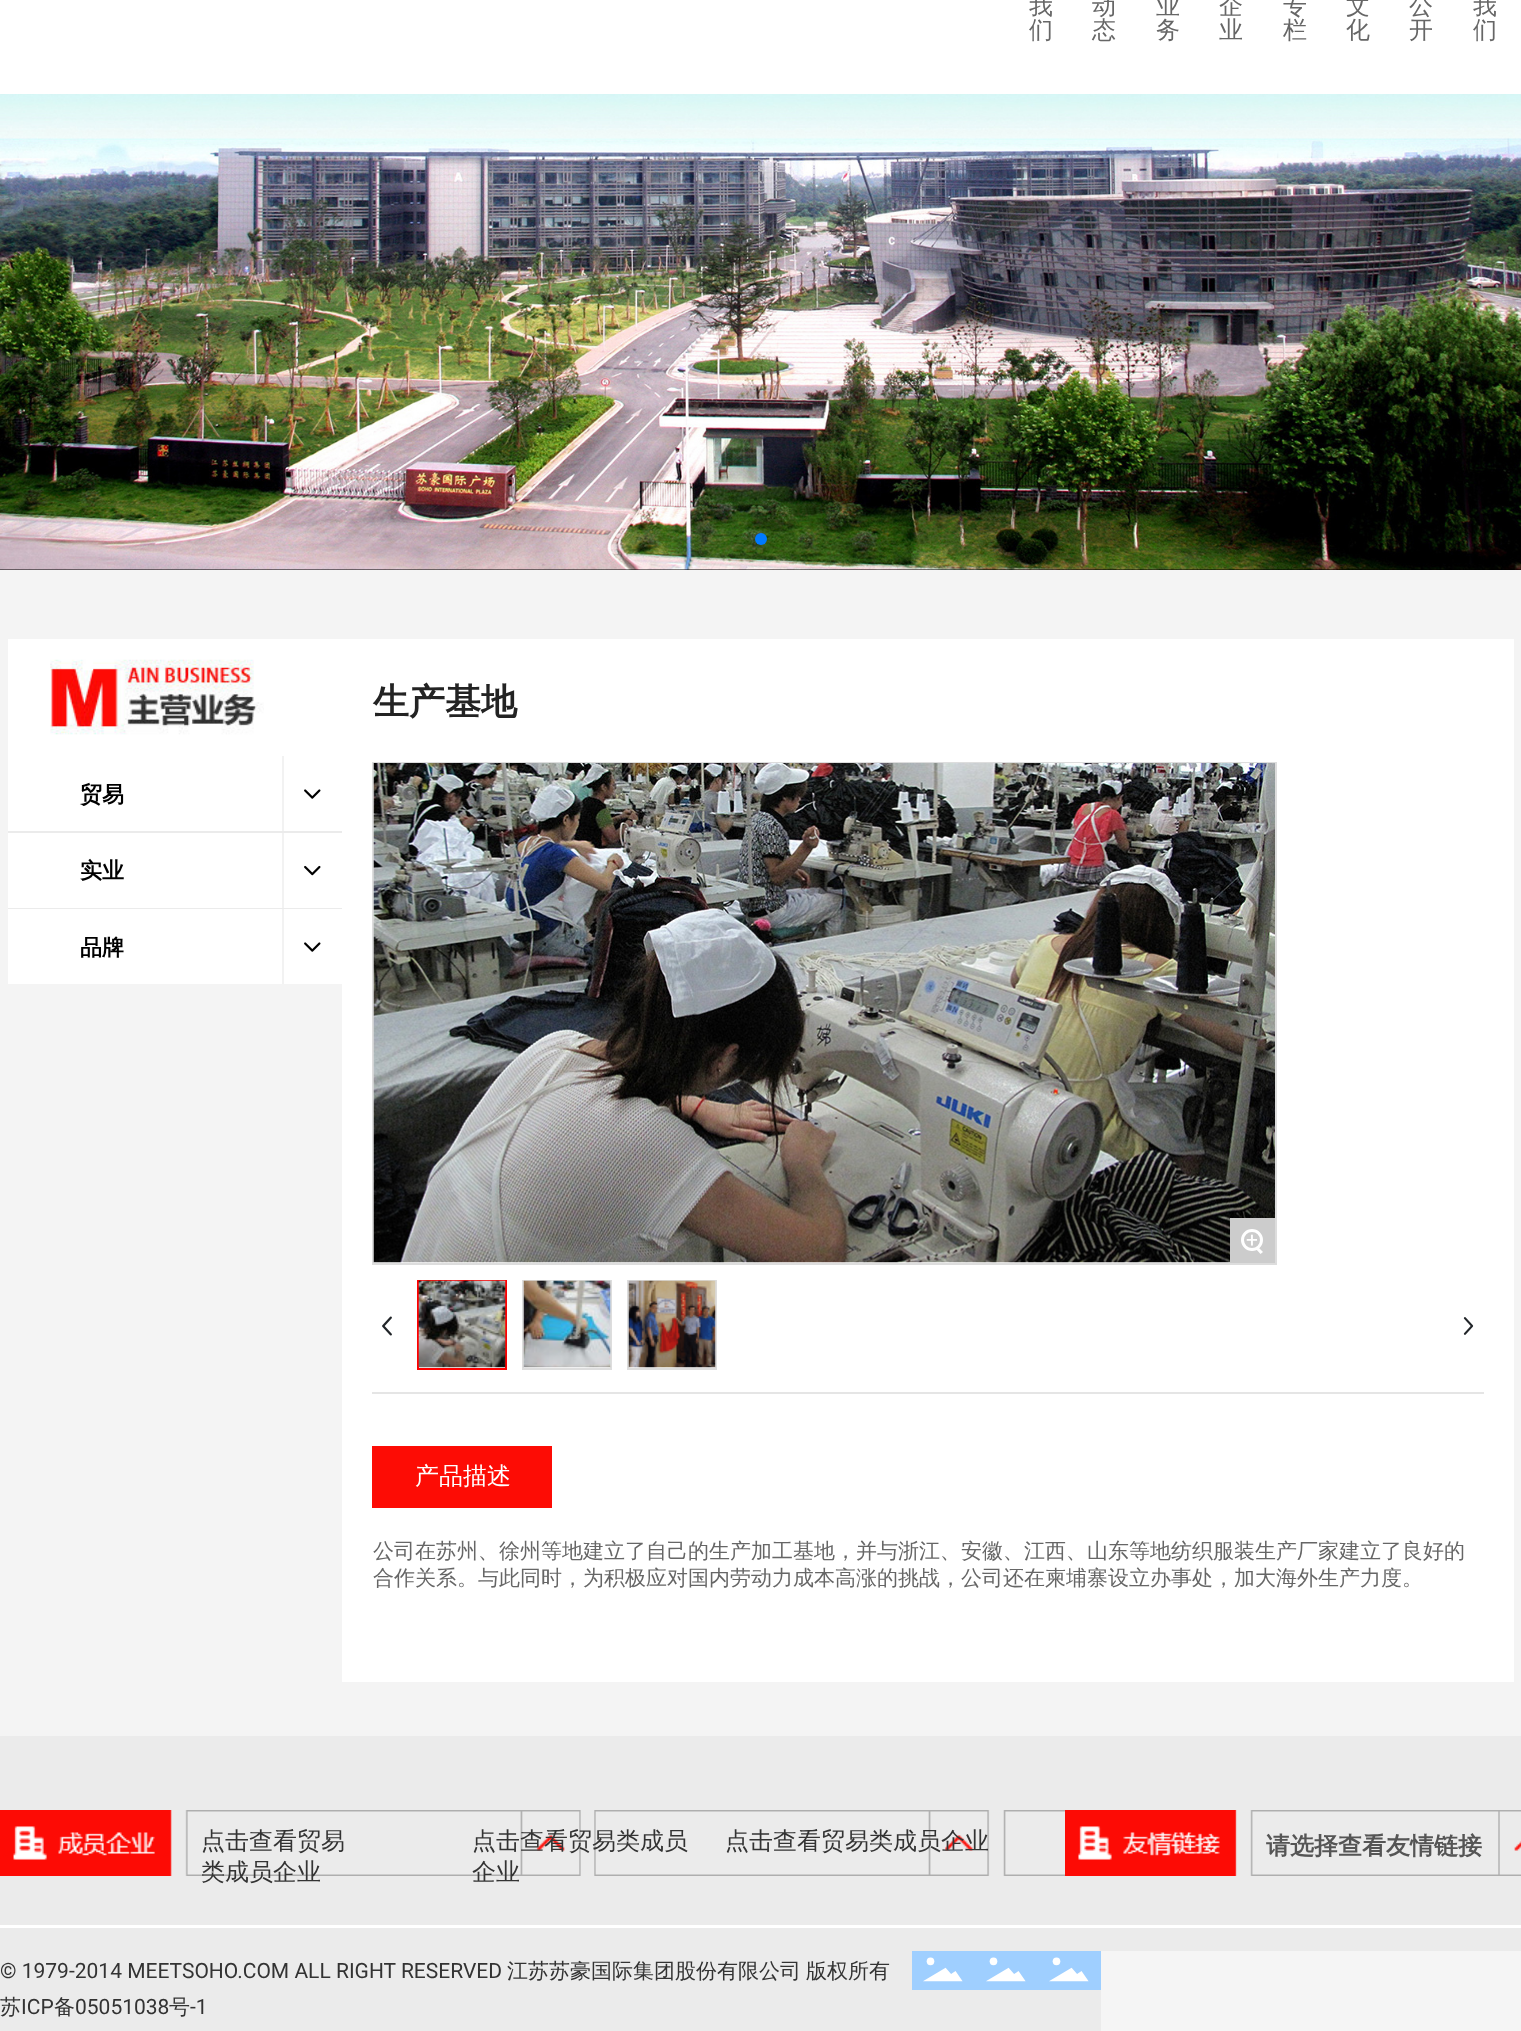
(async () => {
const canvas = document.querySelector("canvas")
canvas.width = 1521
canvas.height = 2031
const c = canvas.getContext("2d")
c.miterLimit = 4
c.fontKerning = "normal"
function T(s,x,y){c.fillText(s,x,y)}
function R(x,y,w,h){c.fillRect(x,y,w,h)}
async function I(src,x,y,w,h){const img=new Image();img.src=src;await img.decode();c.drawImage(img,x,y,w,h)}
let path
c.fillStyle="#fff"
R(0,0,1521,2031)
c.font="500 24px WenQuanYi Zen Hei"
c.fillStyle="#666"
T("我",1029,14)
T("们",1029,38)
T("动",1092,14)
T("态",1092,38)
T("业",1156,14)
T("务",1156,38)
T("企",1219,14)
T("业",1219,38)
T("专",1283,14)
T("栏",1283,38)
T("文",1346,14)
T("化",1346,38)
T("公",1409,14)
T("开",1409,38)
T("我",1473,14)
T("们",1473,38)
c.fillStyle="#000"
R(0,569,1521,1)
await I("1.png",0,94,1521,476)
c.fillStyle="#007aff"
c.beginPath()
c.arc(761,539,6,0,7)
c.fill()
c.fillStyle="#f4f4f4"
R(0,570,1521,1166)
c.fillStyle="#fff"
R(8,639,334,269)
await I("2.png",50,659,214,76)
c.fillStyle="#ebebeb"
R(8,831,334,2)
c.font="bold 22px WenQuanYi Zen Hei"
c.fillStyle="#000"
T("贸易",80,802)
c.fillStyle="#f2f2f2"
R(282,756,2,75)
await I("3.png",304,789,17,10)
c.fillStyle="#ebebeb"
R(8,908,334,1)
c.fillStyle="#000"
T("实业",80,878)
c.fillStyle="#f2f2f2"
R(282,833,2,75)
await I("4.png",304,865,17,11)
c.fillStyle="#fff"
R(8,909,334,75)
c.fillStyle="#000"
T("品牌",80,955)
c.fillStyle="#f2f2f2"
R(282,909,2,75)
await I("3.png",304,942,17,10)
c.fillStyle="#fff"
R(342,639,1172,1043)
c.font="bold 36px WenQuanYi Zen Hei"
c.fillStyle="#232323"
T("生产基地",373,714)
c.strokeStyle="#ddd"
c.lineWidth=2
c.strokeRect(373,763,903,501)
await I("5.png",373,763,902,500)
c.fillStyle="#ccc"
R(1230,1218,45,45)
c.beginPath()
c.arc(1252,1240,9.5,0,7)
c.strokeStyle="#fff"
c.lineWidth=3
c.stroke()
c.font="21px Roboto"
c.fillStyle="#fff"
T("+",1246,1247)
path = new Path2D("M1257.5 1246.5l5.5 5.5l-2.5 2l-5-5.5z")
c.fill(path)
c.strokeStyle="#f00"
c.lineWidth=2
c.strokeRect(418,1281,88,88)
await I("6.png",418,1280,88,88)
c.strokeStyle="#ddd"
c.strokeRect(523,1281,88,88)
await I("7.png",523,1280,88,88)
c.strokeRect(628,1281,88,88)
await I("8.png",628,1280,88,88)
await I("9.png",382,1316,10,20)
await I("10.png",1463,1317,11,18)
c.fillStyle="#e5e5e5"
R(372,1392,1112,2)
c.fillStyle="#fd0c05"
R(372,1446,180,62)
c.font="500 24px WenQuanYi Zen Hei"
c.fillStyle="#fff"
T("产品描述",415,1484)
c.font="500 21px WenQuanYi Zen Hei"
c.fillStyle="#666"
T("公司在苏州、徐州等地建立了自己的生产加工基地，并与浙江、安徽、江西、山东等地纺织服装生产厂家建立了良好的",373,1558)
T("合作关系。与此同时，为积极应对国内劳动力成本高涨的挑战，公司还在柬埔寨设立办事处，加大海外生产力度。",373,1585)
c.fillStyle="#ebebeb"
R(0,1736,1521,295)
await I("11.png",0,1810,1065,66)
c.font="500 24px WenQuanYi Zen Hei"
c.fillStyle="#333"
T("点击查看贸易",201,1849)
T("类成员企业",201,1880)
T("点击查看贸易类成员",472,1849)
T("企业",472,1880)
T("点击查看贸易类成员企业",725,1849)
await I("12.png",1065,1810,456,66)
c.font="bold 24px WenQuanYi Zen Hei"
c.fillStyle="#555"
T("请选择查看友情链接",1266,1854)
c.fillStyle="#fff"
R(0,1925,1521,3)
c.font="21px Roboto"
c.fillStyle="#333"
T("© 1979-2014 MEETSOHO.COM ALL RIGHT RESERVED",0,1978)
c.font="500 21px WenQuanYi Zen Hei"
T("江苏苏豪国际集团股份有限公司",507,1978)
T("版权所有",806,1978)
T("苏",0,2014)
c.font="21px Roboto"
T("ICP",21,2014)
c.font="500 21px WenQuanYi Zen Hei"
T("备",54,2014)
c.font="21px Roboto"
T("05051038",75,2014)
c.font="500 21px WenQuanYi Zen Hei"
T("号",169,2014)
c.font="21px Roboto"
T("-1",190,2014)
await I("13.png",912,1951,63,39)
await I("14.png",975,1951,63,39)
await I("13.png",1038,1951,63,39)
c.fillStyle="#f5f5f5"
R(1101,1951,420,80)
})()
